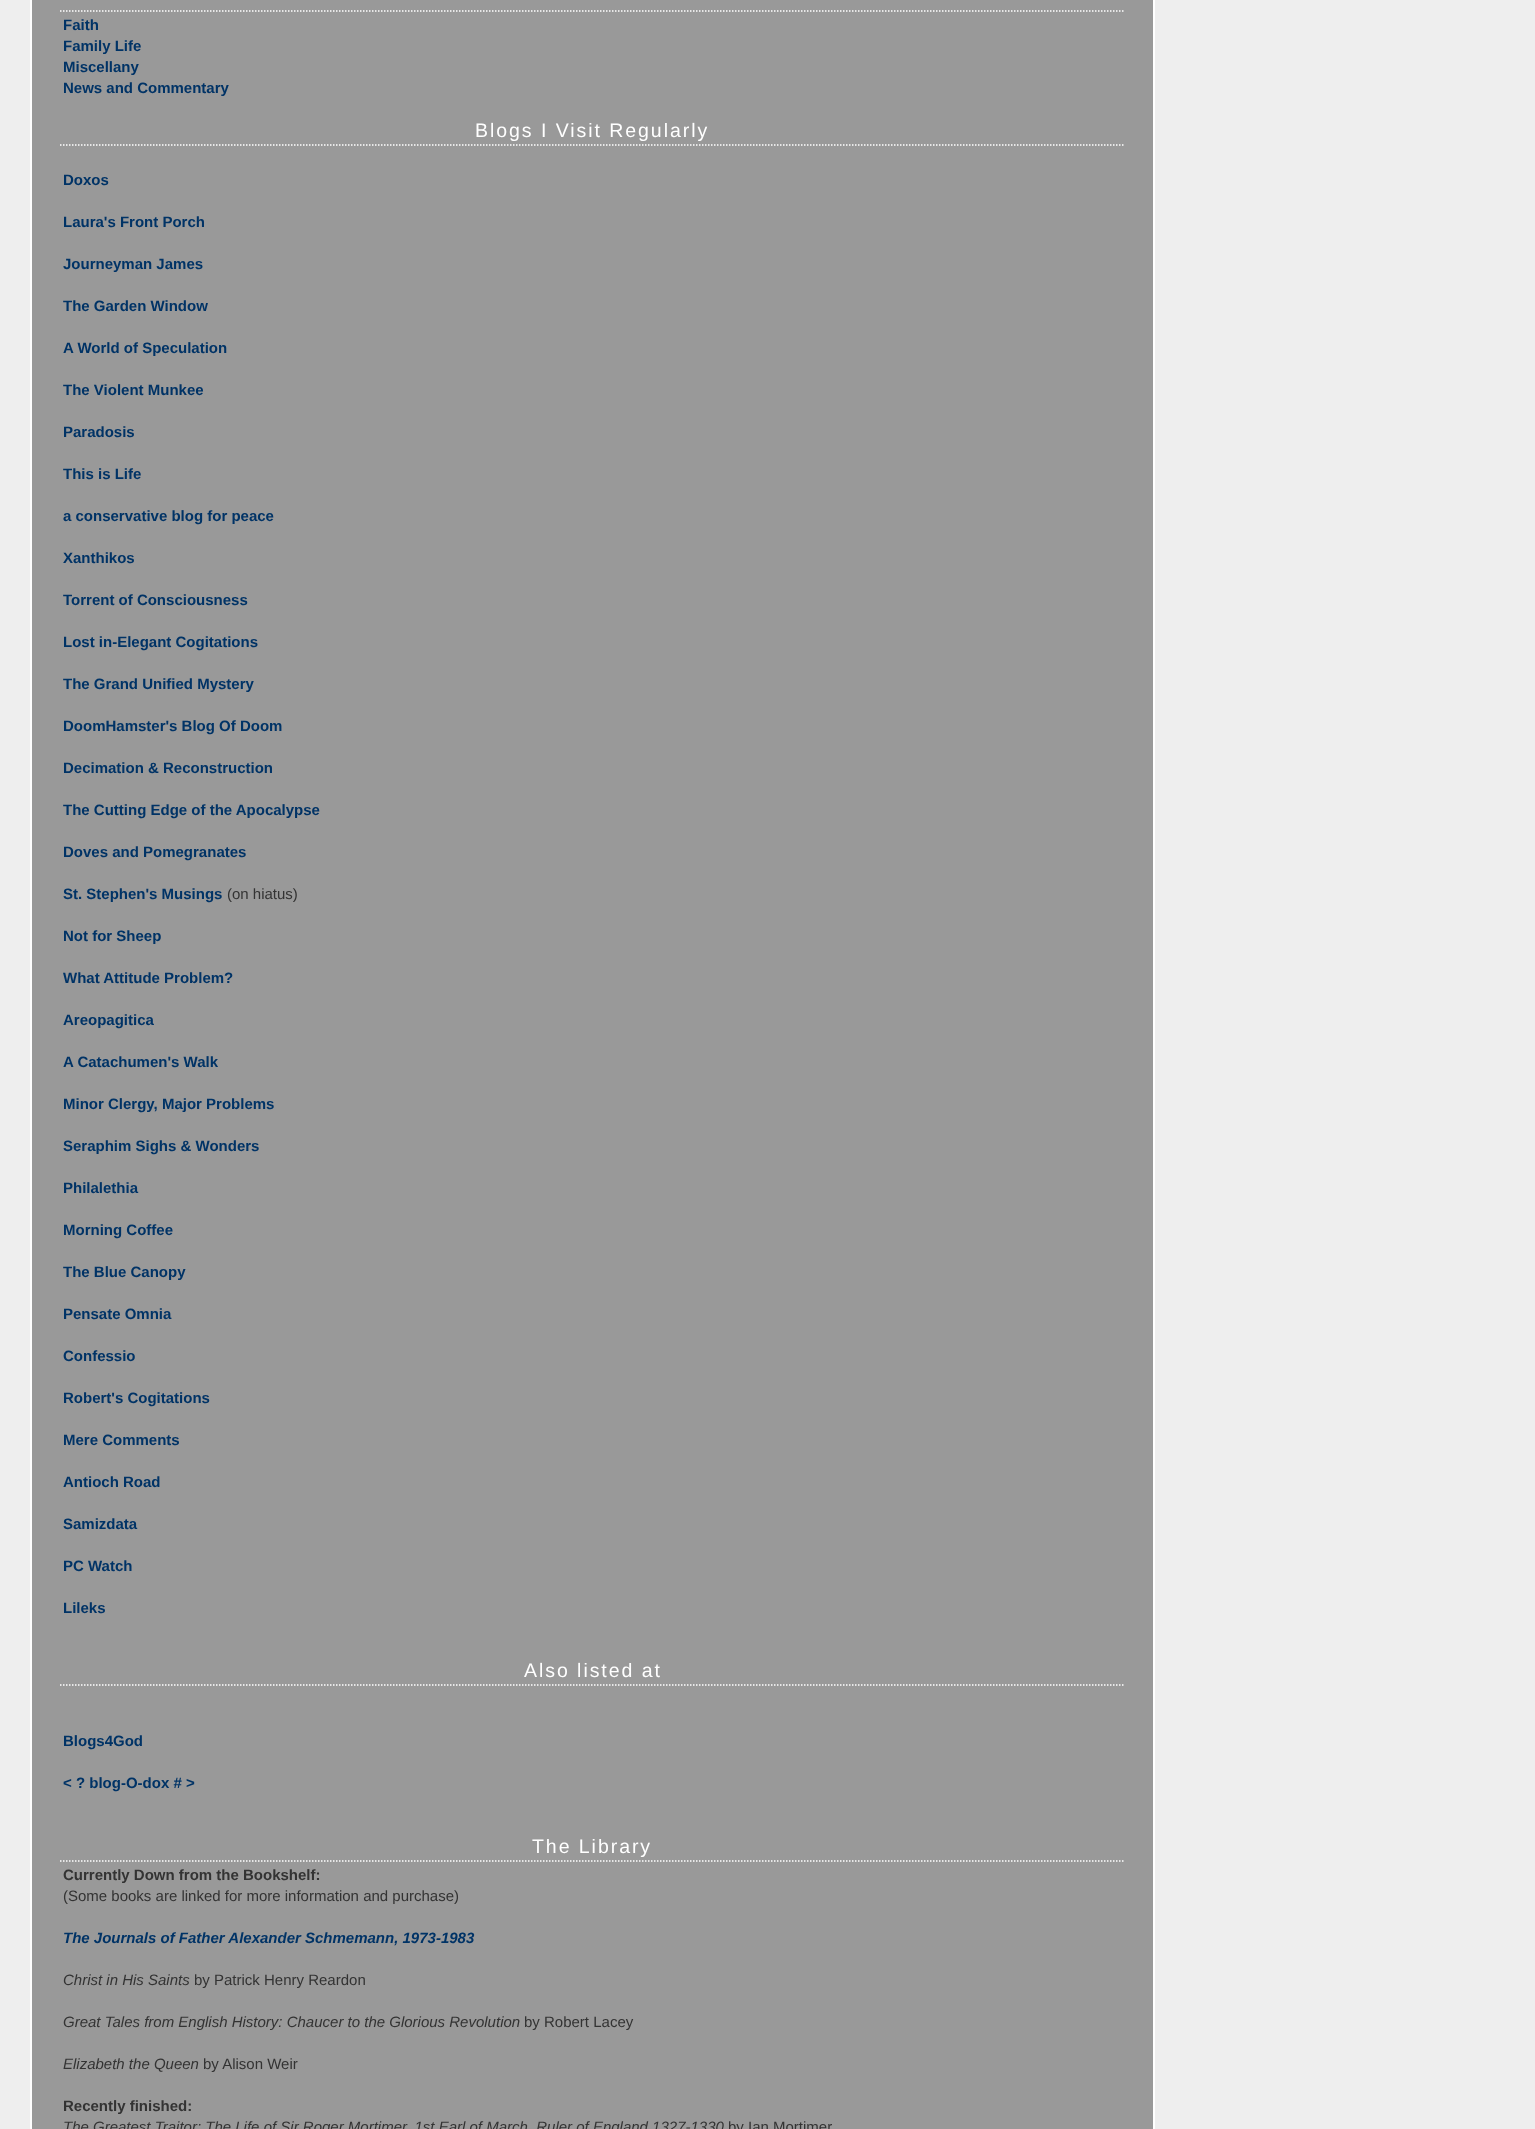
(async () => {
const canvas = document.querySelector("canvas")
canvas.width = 1535
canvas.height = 2129
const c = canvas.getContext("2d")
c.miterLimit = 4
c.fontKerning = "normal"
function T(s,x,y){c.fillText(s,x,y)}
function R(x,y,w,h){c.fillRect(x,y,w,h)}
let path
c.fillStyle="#eee"
R(0,0,1535,2129)
c.fillStyle="#999"
c.beginPath()
c.rect(31,-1,1123,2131)
c.fill()
c.strokeStyle="#fff"
c.lineWidth=2
c.stroke()
path = new Path2D("M60 11h1065")
c.lineWidth=1.5
c.setLineDash([1.5,1.5])
c.stroke(path)
c.font="bold 15px Liberation Sans"
c.fillStyle="#036"
T("Faith",63,30)
T("Family Life",63,51)
T("Miscellany",63,72)
T("News and Commentary",63,93)
path = new Path2D("M60 145h1065")
c.stroke(path)
c.letterSpacing="1.95px"
c.font="19.5px Liberation Sans"
c.fillStyle="#fff"
T("Blogs I Visit Regularly",475,137)
c.letterSpacing="0px"
c.font="bold 15px Liberation Sans"
c.fillStyle="#036"
T("Doxos",63,185)
T("Laura's Front Porch",63,227)
T("Journeyman James",63,269)
T("The Garden Window",63,311)
T("A World of Speculation",63,353)
T("The Violent Munkee",63,395)
T("Paradosis",63,437)
T("This is Life",63,479)
T("a conservative blog for peace",63,521)
T("Xanthikos",63,563)
T("Torrent of Consciousness",63,605)
T("Lost in-Elegant Cogitations",63,647)
T("The Grand Unified Mystery",63,689)
T("DoomHamster's Blog Of Doom",63,731)
T("Decimation & Reconstruction",63,773)
T("The Cutting Edge of the Apocalypse",63,815)
T("Doves and Pomegranates",63,857)
T("St. Stephen's Musings",63,899)
c.font="15px Liberation Sans"
c.fillStyle="#333"
T("(on hiatus)",227,899)
c.font="bold 15px Liberation Sans"
c.fillStyle="#036"
T("Not for Sheep",63,941)
T("What Attitude Problem?",63,983)
T("Areopagitica",63,1025)
T("A Catachumen's Walk",63,1067)
T("Minor Clergy, Major Problems",63,1109)
T("Seraphim Sighs & Wonders",63,1151)
T("Philalethia",63,1193)
T("Morning Coffee",63,1235)
T("The Blue Canopy",63,1277)
T("Pensate Omnia",63,1319)
T("Confessio",63,1361)
T("Robert's Cogitations",63,1403)
T("Mere Comments",63,1445)
T("Antioch Road",63,1487)
T("Samizdata",63,1529)
T("PC Watch",63,1571)
T("Lileks",63,1613)
path = new Path2D("M60 1685h1065")
c.stroke(path)
c.letterSpacing="1.95px"
c.font="19.5px Liberation Sans"
c.fillStyle="#fff"
T("Also listed at",524,1677)
c.letterSpacing="0px"
c.font="bold 15px Liberation Sans"
c.fillStyle="#036"
T("Blogs4God",63,1746)
T("< ? blog-O-dox # >",63,1788)
path = new Path2D("M60 1861h1065")
c.stroke(path)
c.letterSpacing="1.95px"
c.font="19.5px Liberation Sans"
c.fillStyle="#fff"
T("The Library",532,1853)
c.letterSpacing="0px"
c.font="bold 15px Liberation Sans"
c.fillStyle="#333"
T("Currently Down from the Bookshelf:",63,1880)
c.font="15px Liberation Sans"
T("(Some books are linked for more information and purchase)",63,1901)
c.font="italic bold 15px Liberation Sans"
c.fillStyle="#036"
T("The Journals of Father Alexander Schmemann, 1973-1983",63,1943)
c.font="italic 15px Liberation Sans"
c.fillStyle="#333"
T("Christ in His Saints",63,1985)
c.font="15px Liberation Sans"
T("by Patrick Henry Reardon",194,1985)
c.font="italic 15px Liberation Sans"
T("Great Tales from English History: Chaucer to the Glorious Revolution",63,2027)
c.font="15px Liberation Sans"
T("by Robert Lacey",524,2027)
c.font="italic 15px Liberation Sans"
T("Elizabeth the Queen",63,2069)
c.font="15px Liberation Sans"
T("by Alison Weir",203,2069)
c.font="bold 15px Liberation Sans"
T("Recently finished:",63,2111)
c.font="italic 15px Liberation Sans"
T("The Greatest Traitor: The Life of Sir Roger Mortimer, 1st Earl of March, Ruler of England 1327-1330",63,2132)
c.font="15px Liberation Sans"
T("by Ian Mortimer",728,2132)
})()
